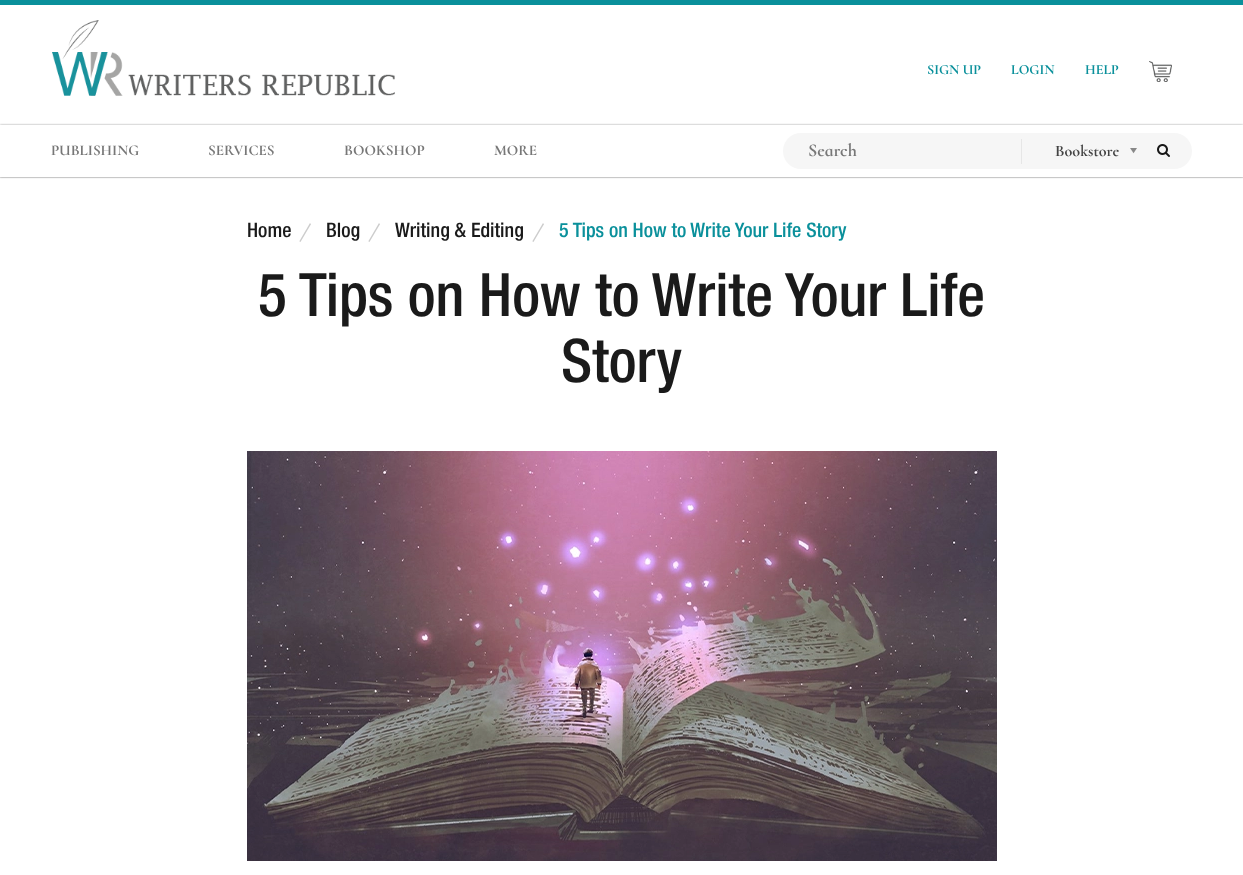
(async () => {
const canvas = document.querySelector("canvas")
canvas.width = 1243
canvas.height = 875
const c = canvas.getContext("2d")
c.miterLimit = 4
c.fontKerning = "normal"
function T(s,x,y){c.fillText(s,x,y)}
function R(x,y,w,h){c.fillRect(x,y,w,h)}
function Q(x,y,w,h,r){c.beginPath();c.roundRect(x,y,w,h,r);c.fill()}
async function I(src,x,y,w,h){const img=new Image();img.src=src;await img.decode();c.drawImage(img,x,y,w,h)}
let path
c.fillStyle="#fff"
R(0,0,1243,875)
c.fillStyle="#0a909b"
R(0,0,1243,5)
c.fillStyle="#e7e7e7"
R(0,177,1243,1)
await I("1.png",52,20,343,76)
c.font="bold 14px Cormorant Infant"
c.fillStyle="#0a909b"
T("SIGN UP",927,74)
T("LOGIN",1011,74)
T("HELP",1085,74)
await I("2.png",1149,61,23,21)
c.save()
path = new Path2D("M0 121h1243v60h-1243zm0 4h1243v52h-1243z")
c.clip(path,"evenodd")
c.fillStyle="#00000066"
c.filter="blur(1px)"
c.beginPath()
c.rect(0,125,1243,52)
c.fill()
c.filter="none"
c.restore()
c.font="bold 15px Cormorant Infant"
c.fillStyle="#777"
T("PUBLISHING",51,155)
T("SERVICES",208,155)
T("BOOKSHOP",344,155)
T("MORE",494,155)
c.fillStyle="#f6f6f6"
Q(783,133,409,36,18)
c.fillStyle="#e6e6e6"
R(1021,139,1,25)
c.font="bold 18px Cormorant Infant"
c.fillStyle="#777"
T("Search",808,156)
c.font="bold 16px Cormorant Infant"
c.fillStyle="#444"
T("Bookstore",1055,156)
await I("3.png",1130,148,7,6)
await I("4.png",1157,144,13,13)
c.font="500 20px Helvetica Neue"
c.fillStyle="#1a1a1a"
T("Home",247,237)
c.font="18px Lora"
c.fillStyle="#ccc"
T("/",299,237)
c.font="500 20px Helvetica Neue"
c.fillStyle="#1a1a1a"
T("Blog",326,237)
c.font="18px Lora"
c.fillStyle="#ccc"
T("/",368,237)
c.font="500 20px Helvetica Neue"
c.fillStyle="#1a1a1a"
T("Writing & Editing",395,237)
c.font="18px Lora"
c.fillStyle="#ccc"
T("/",532,237)
c.font="500 20px Helvetica Neue"
c.fillStyle="#0a909b"
T("5 Tips on How to Write Your Life Story",559,237)
c.font="500 60px Helvetica Neue"
c.fillStyle="#1a1a1a"
T("5 Tips on How to Write Your Life",258,316)
T("Story",561,382)
await I("5.png",247,451,750,410)
})()
